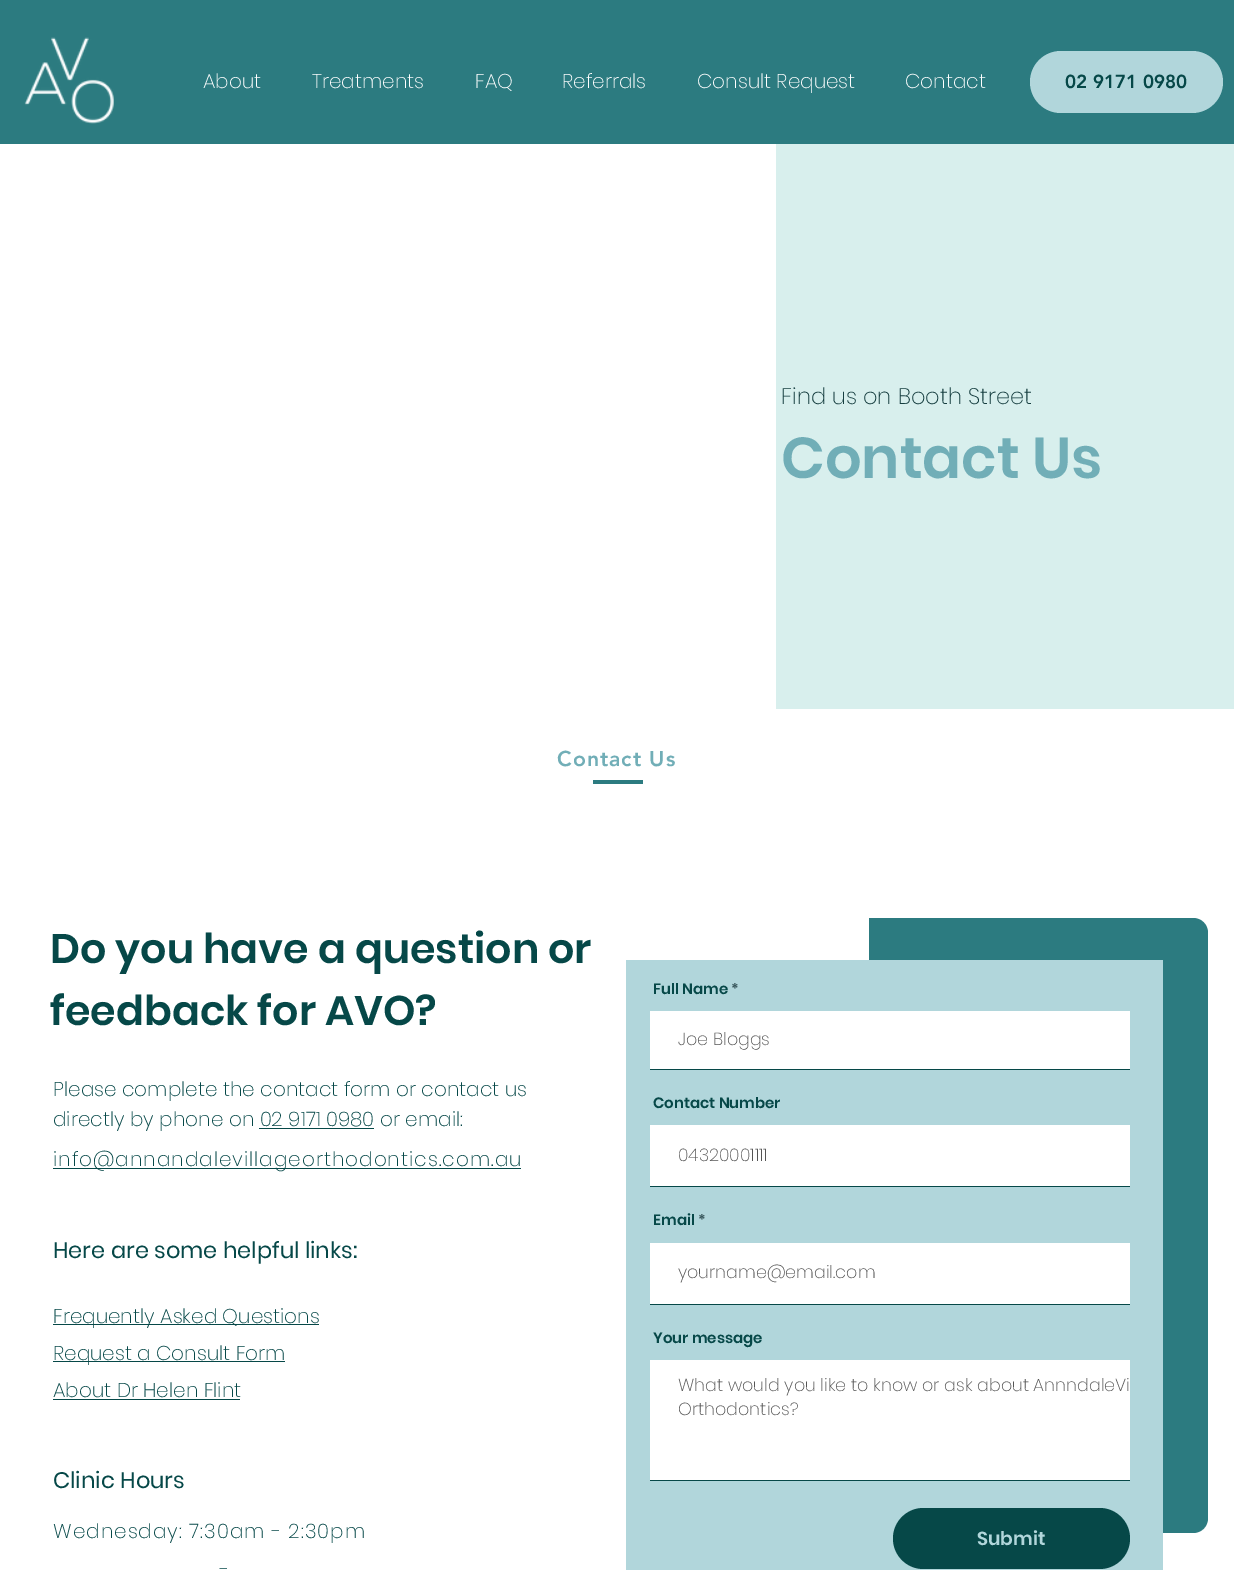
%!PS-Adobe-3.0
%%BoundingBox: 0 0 1234 1570
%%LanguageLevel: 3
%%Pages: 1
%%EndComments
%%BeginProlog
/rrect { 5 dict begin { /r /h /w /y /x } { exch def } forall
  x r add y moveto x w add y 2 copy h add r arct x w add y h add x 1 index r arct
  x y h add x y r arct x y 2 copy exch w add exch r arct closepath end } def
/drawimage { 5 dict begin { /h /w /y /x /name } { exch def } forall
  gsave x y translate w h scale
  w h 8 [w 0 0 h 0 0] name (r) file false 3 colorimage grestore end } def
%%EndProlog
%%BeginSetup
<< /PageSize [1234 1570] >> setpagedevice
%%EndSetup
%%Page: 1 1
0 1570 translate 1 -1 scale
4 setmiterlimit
1 setgray
0 0 1234 1570 rectfill
0.173 0.482 0.502 setrgbcolor
0 0 1234 144 rectfill
(images/1.raw) 24 37 90 87 drawimage
0.694 0.839 0.859 setrgbcolor
1030 51 193 62 31 rrect fill
0.847 0.937 0.929 setrgbcolor
776 144 458 565 rectfill
0.173 0.482 0.502 setrgbcolor
593 780 50 4 rectfill
0.024 0.282 0.282 setrgbcolor
259 1128 115 1 rectfill
53 1168 468 1 rectfill
53 1324 266 1 rectfill
53 1361 232 1 rectfill
53 1399 187 1 rectfill
0.173 0.482 0.502 setrgbcolor
newpath 869 918 moveto 1193 918 lineto 1201.5 918 1208 924.5 1208 933 curveto 1208 1518 lineto 1208 1526.5 1201.5 1533 1193 1533 curveto 869 1533 lineto closepath fill
0.694 0.839 0.859 setrgbcolor
626 960 537 610 rectfill
1 setgray
650 1011 480 58 rectfill
0.024 0.282 0.282 setrgbcolor
650 1069 480 1 rectfill
1 setgray
650 1125 480 61 rectfill
0.024 0.282 0.282 setrgbcolor
650 1186 480 1 rectfill
1 setgray
650 1243 480 61 rectfill
0.024 0.282 0.282 setrgbcolor
650 1304 480 1 rectfill
1 setgray
650 1360 480 120 rectfill
0.024 0.282 0.282 setrgbcolor
650 1480 480 1 rectfill
893 1508 237 61 30.5 rrect fill
/Poppins-ExtraLight [20 0 0 -20 0 0] selectfont
1 setgray
203 88 moveto (About) show
312 88 moveto (Treatments) show
475 88 moveto (FAQ) show
562 88 moveto (Referrals) show
697 88 moveto (Consult Request) show
905 88 moveto (Contact) show
/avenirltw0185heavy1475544-Black [18.75 0 0 -18.75 0 0] selectfont
0.024 0.282 0.282 setrgbcolor
1065 88 moveto (02 9171 0980) show
/Poppins-ExtraLight [22.5 0 0 -22.5 0 0] selectfont
0.086 0.243 0.251 setrgbcolor
781 404 moveto (Find us on Booth Street) show
/Poppins-SemiBold [57.5 0 0 -57.5 0 0] selectfont
0.443 0.682 0.718 setrgbcolor
781 478 moveto (Contact Us) show
/avenirltw0185heavy1475544-Black [21.25 0 0 -21.25 0 0] selectfont
557 766 moveto 1 0 (Contact Us) ashow
/Poppins-SemiBold [41.25 0 0 -41.25 0 0] selectfont
0.024 0.282 0.282 setrgbcolor
50 963 moveto (Do you have a question or) show
50 1025 moveto (feedback for AVO?) show
/Poppins-ExtraLight [20 0 0 -20 0 0] selectfont
53 1096 moveto (Please complete the contact form or contact us) show
53 1126 moveto (directly by phone on 02 9171 0980 or email:) show
53 1166 moveto 1 0 (info@annandalevillageorthodontics.com.au) ashow
/Poppins-Regular [22.5 0 0 -22.5 0 0] selectfont
53 1258 moveto (Here are some helpful links:) show
/Poppins-ExtraLight [20 0 0 -20 0 0] selectfont
53 1323 moveto (Frequently Asked Questions) show
53 1360 moveto (Request a Consult Form) show
53 1397 moveto (About Dr Helen Flint) show
/Poppins-Regular [22.5 0 0 -22.5 0 0] selectfont
53 1488 moveto (Clinic Hours) show
/Poppins-ExtraLight [20 0 0 -20 0 0] selectfont
53 1538 moveto 1 0 (Wednesday: 7:30am - 2:30pm) ashow
220 1576 moveto 1 0 (-) ashow
/Poppins-SemiBold [15 0 0 -15 0 0] selectfont
653 994 moveto (Full Name) show
0.224 0.341 0.361 setrgbcolor
731 994 moveto (*) show
/Poppins-ExtraLight [17.5 0 0 -17.5 0 0] selectfont
0.333 setgray
678 1045 moveto (Joe Bloggs) show
/Poppins-SemiBold [15 0 0 -15 0 0] selectfont
0.024 0.282 0.282 setrgbcolor
653 1108 moveto (Contact Number) show
/Poppins-ExtraLight [17.5 0 0 -17.5 0 0] selectfont
0.333 setgray
678 1161 moveto (04320001111) show
/Poppins-SemiBold [15 0 0 -15 0 0] selectfont
0.024 0.282 0.282 setrgbcolor
653 1225 moveto (Email) show
0.224 0.341 0.361 setrgbcolor
698 1225 moveto (*) show
/Poppins-ExtraLight [17.5 0 0 -17.5 0 0] selectfont
0.333 setgray
678 1278 moveto (yourname@email.com) show
/Poppins-SemiBold [15 0 0 -15 0 0] selectfont
0.024 0.282 0.282 setrgbcolor
653 1343 moveto (Your message) show
/Poppins-ExtraLight [17.5 0 0 -17.5 0 0] selectfont
0.333 setgray
678 1391 moveto (What would you like to know or ask about AnnndaleVi) show
678 1415 moveto (Orthodontics?) show
/Poppins-SemiBold [18.75 0 0 -18.75 0 0] selectfont
0.694 0.839 0.859 setrgbcolor
977 1545 moveto (Submit) show
showpage
%%EOF
